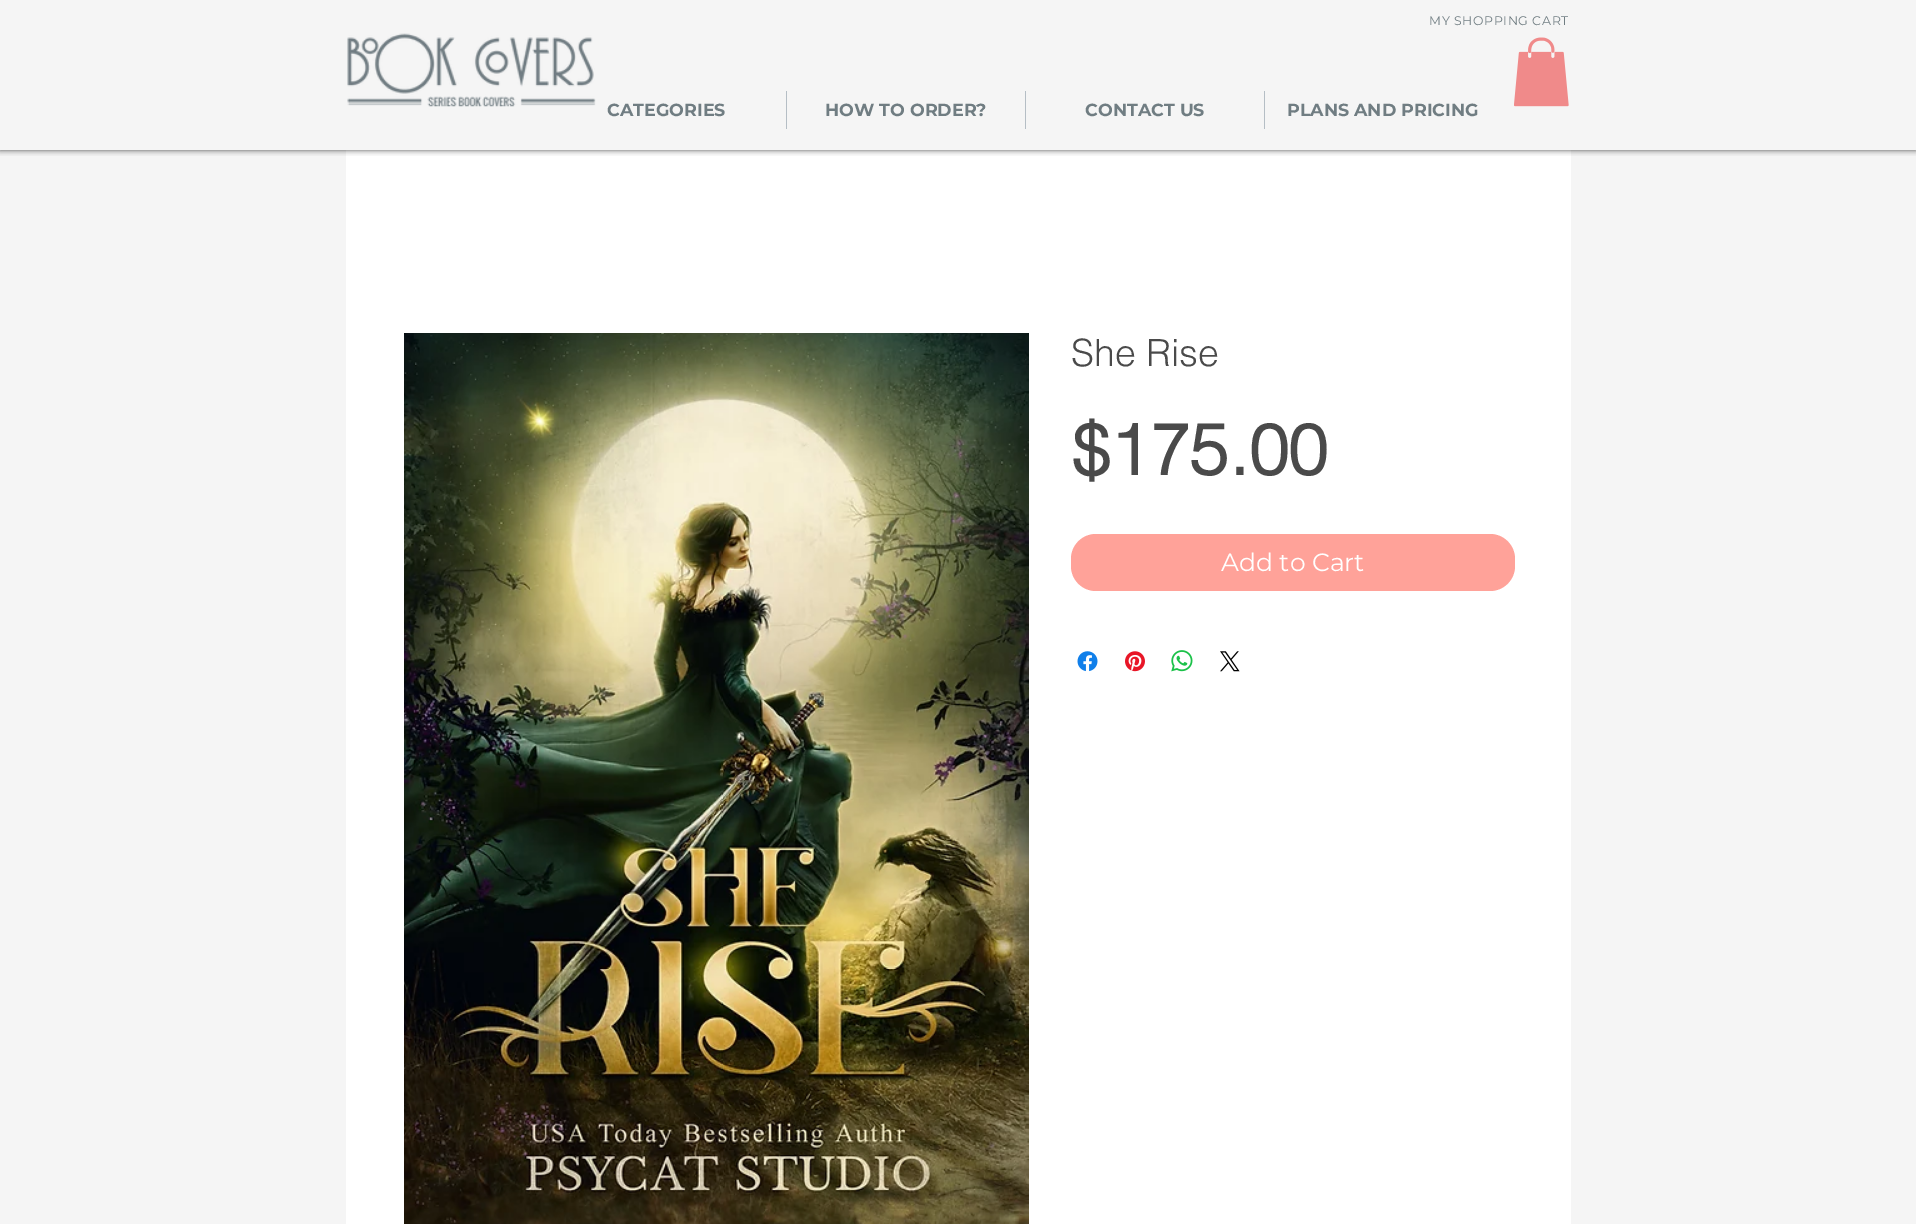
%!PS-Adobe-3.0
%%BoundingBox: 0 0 1916 1224
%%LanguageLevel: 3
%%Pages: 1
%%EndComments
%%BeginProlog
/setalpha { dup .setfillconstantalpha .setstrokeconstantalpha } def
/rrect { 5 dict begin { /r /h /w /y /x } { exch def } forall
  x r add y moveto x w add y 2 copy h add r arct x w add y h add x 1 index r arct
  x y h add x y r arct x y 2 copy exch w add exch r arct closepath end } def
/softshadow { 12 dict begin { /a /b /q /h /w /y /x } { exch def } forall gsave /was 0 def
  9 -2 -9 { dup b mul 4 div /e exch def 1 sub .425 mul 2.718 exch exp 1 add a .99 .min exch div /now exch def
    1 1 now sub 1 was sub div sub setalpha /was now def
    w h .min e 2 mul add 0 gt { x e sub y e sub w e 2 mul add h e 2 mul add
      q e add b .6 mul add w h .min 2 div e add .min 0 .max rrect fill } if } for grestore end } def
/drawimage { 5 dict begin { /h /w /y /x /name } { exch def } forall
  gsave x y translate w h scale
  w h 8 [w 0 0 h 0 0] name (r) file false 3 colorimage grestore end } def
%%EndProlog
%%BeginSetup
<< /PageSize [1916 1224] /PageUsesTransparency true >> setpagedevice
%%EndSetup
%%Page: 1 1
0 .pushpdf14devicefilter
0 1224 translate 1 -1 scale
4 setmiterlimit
0.961 setgray
0 0 1916 1224 rectfill
1 setgray
346 150 1225 1074 rectfill
gsave
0 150 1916 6 rectclip
0 setgray
0 0 1916 150 0 3 0.7 softshadow
grestore
(images/1.raw) 347 33 249 74 drawimage
(images/2.raw) 1514 37 55 70 drawimage
0.71 0.745 0.773 setrgbcolor
786 91 1 38 rectfill
1025 91 1 38 rectfill
1264 91 1 38 rectfill
(images/3.raw) 404 333 625 891 drawimage
1 0.635 0.6 setrgbcolor
1071 534 444 57 25 rrect fill
(images/4.raw) 1077 651 21 21 drawimage
(images/5.raw) 1125 651 20 21 drawimage
(images/6.raw) 1171 650 22 22 drawimage
(images/7.raw) 1220 651 20 21 drawimage
/Montserrat-Regular [12.5 0 0 -12.5 0 0] selectfont
0.439 0.49 0.51 setrgbcolor
1429 25 moveto 0.6 0 (MY SHOPPING CART) ashow
/Montserrat-Bold [17.5 0 0 -17.5 0 0] selectfont
607 116 moveto (CATEGORIES) show
825 116 moveto (HOW TO ORDER?) show
1085 116 moveto (CONTACT US) show
1287 116 moveto (PLANS AND PRICING) show
/helvetica-Light [37.5 0 0 -37.5 0 0] selectfont
0.29 setgray
1071 366 moveto (She Rise) show
/helvetica-Bold [71 0 0 -71 0 0] selectfont
1071 475 moveto ($175.00) show
/Montserrat-Regular [25 0 0 -25 0 0] selectfont
1 setgray
1221 571 moveto (Add to Cart) show
.poppdf14devicefilter showpage
%%EOF
